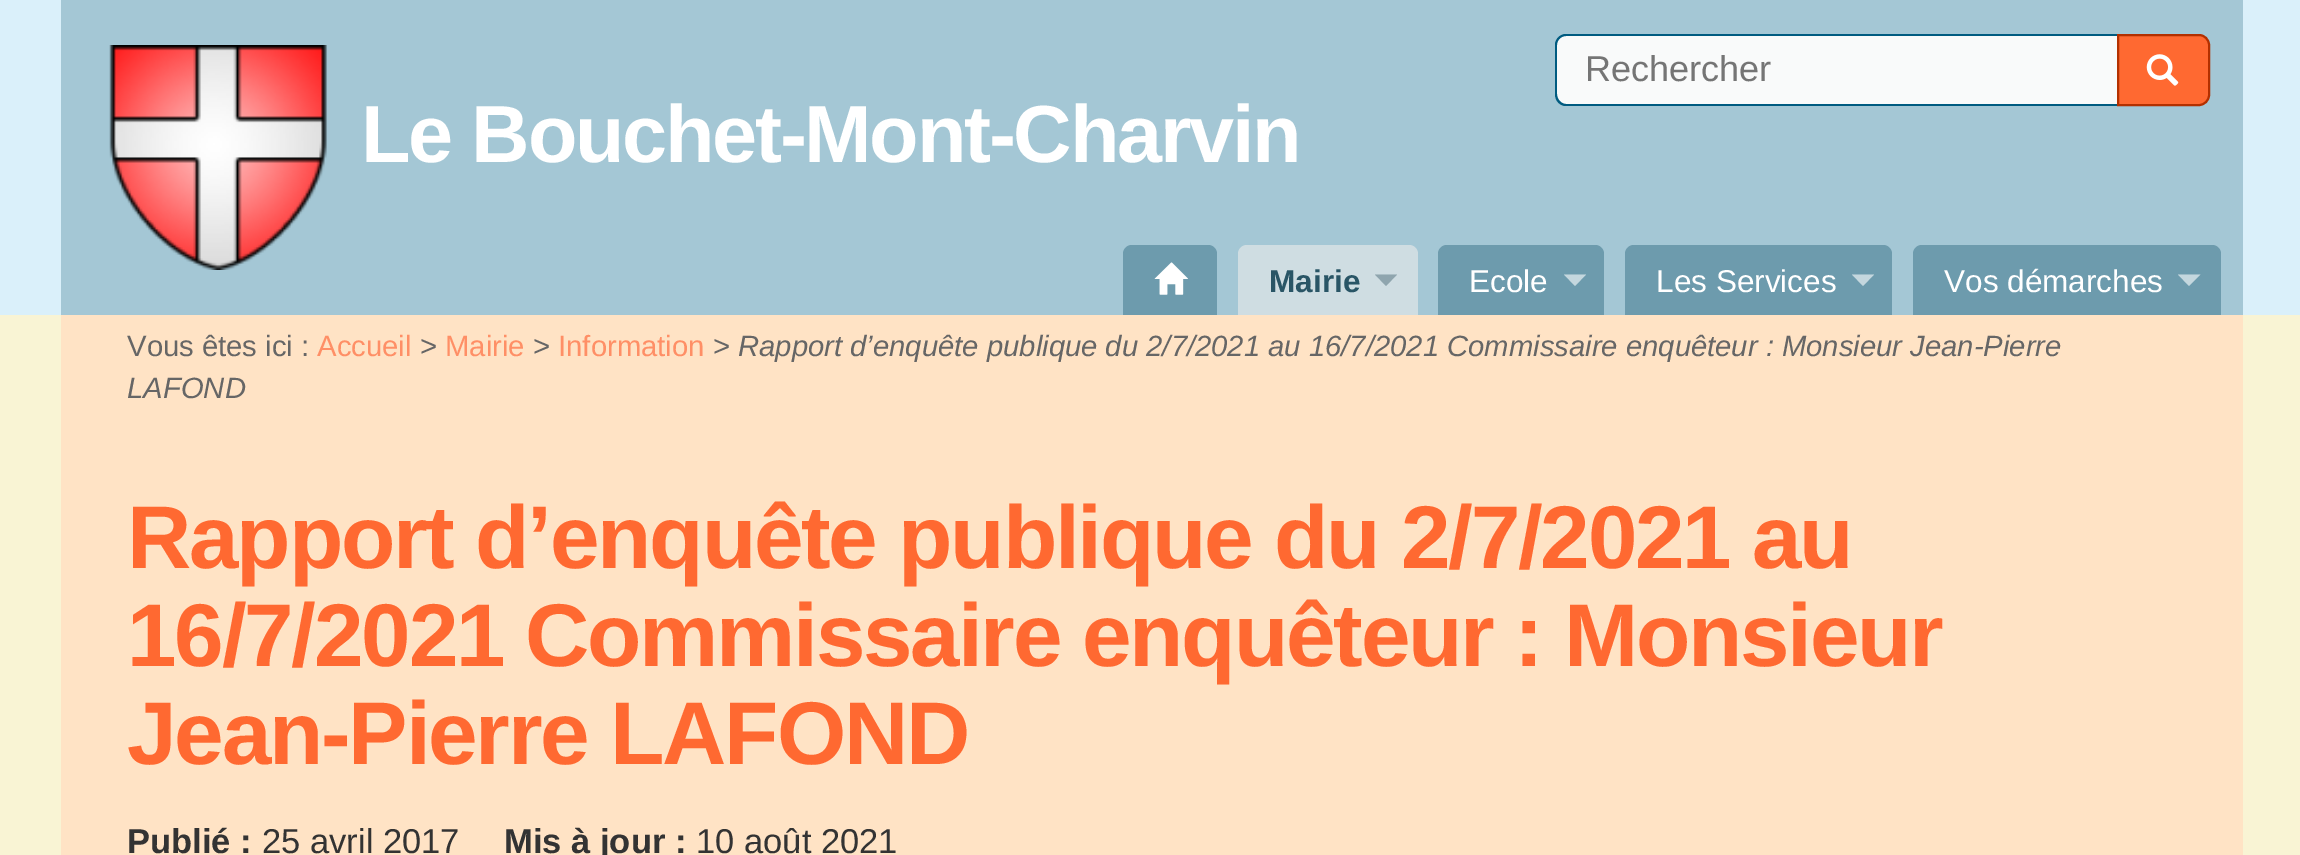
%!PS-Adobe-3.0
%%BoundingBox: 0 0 2300 855
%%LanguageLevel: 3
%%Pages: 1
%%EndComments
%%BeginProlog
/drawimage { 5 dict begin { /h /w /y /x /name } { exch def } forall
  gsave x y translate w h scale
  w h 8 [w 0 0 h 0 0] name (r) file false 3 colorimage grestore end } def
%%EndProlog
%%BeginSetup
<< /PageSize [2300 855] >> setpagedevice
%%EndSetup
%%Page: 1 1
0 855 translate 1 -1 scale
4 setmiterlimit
0.855 0.941 0.98 setrgbcolor
0 0 2300 855 rectfill
0.643 0.78 0.835 setrgbcolor
61 0 2182 315 rectfill
0.976 0.98 0.98 setrgbcolor
newpath 1566 36 moveto 2117 36 lineto 2117 104 lineto 1566 104 lineto 1561 104 1557 100 1557 95 curveto 1557 45 lineto 1557 40 1561 36 1566 36 curveto closepath fill
0 0.357 0.502 setrgbcolor
newpath 1566 34 moveto 2117 34 lineto 2117 106 lineto 1566 106 lineto 1560 106 1555 101 1555 94 curveto 1555 45 lineto 1555 39 1560 34 1566 34 curveto closepath 1566 36 moveto 2117 36 lineto 2117 104 lineto 1566 104 lineto 1561 104 1557 99 1557 94 curveto 1557 45 lineto 1557 40 1561 36 1566 36 curveto closepath eofill
1 0.412 0.192 setrgbcolor
newpath 2118 35 moveto 2199 35 lineto 2204.5 35 2209 39.5 2209 45 curveto 2209 95 lineto 2209 100.5 2204.5 105 2199 105 curveto 2118 105 lineto closepath gsave fill grestore
0.702 0.188 0 setrgbcolor
2 setlinewidth
stroke
(images/1.raw) 2146 54 33 32 drawimage
(images/2.raw) 109 45 218 225 drawimage
0.427 0.608 0.678 setrgbcolor
newpath 1132 245 moveto 1208 245 lineto 1213 245 1217 249 1217 254 curveto 1217 315 lineto 1123 315 lineto 1123 254 lineto 1123 249 1127 245 1132 245 curveto closepath fill
(images/3.raw) 1154 262 34 33 drawimage
0.812 0.867 0.886 setrgbcolor
newpath 1247 245 moveto 1409 245 lineto 1414 245 1418 249 1418 254 curveto 1418 315 lineto 1238 315 lineto 1238 254 lineto 1238 249 1242 245 1247 245 curveto closepath fill
0.561 0.647 0.682 setrgbcolor
newpath 1375 274.5 moveto 1397 274.5 lineto 1386 286 lineto closepath fill
0.427 0.608 0.678 setrgbcolor
newpath 1447 245 moveto 1595 245 lineto 1600 245 1604 249 1604 254 curveto 1604 315 lineto 1438 315 lineto 1438 254 lineto 1438 249 1442 245 1447 245 curveto closepath fill
0.769 0.843 0.871 setrgbcolor
newpath 1564 274.5 moveto 1586 274.5 lineto 1575 286 lineto closepath fill
0.427 0.608 0.678 setrgbcolor
newpath 1634 245 moveto 1883 245 lineto 1888 245 1892 249 1892 254 curveto 1892 315 lineto 1625 315 lineto 1625 254 lineto 1625 249 1629 245 1634 245 curveto closepath fill
0.769 0.843 0.871 setrgbcolor
newpath 1852 274.5 moveto 1874 274.5 lineto 1863 286 lineto closepath fill
0.427 0.608 0.678 setrgbcolor
newpath 1922 245 moveto 2212 245 lineto 2217 245 2221 249 2221 254 curveto 2221 315 lineto 1913 315 lineto 1913 254 lineto 1913 249 1917 245 1922 245 curveto closepath fill
0.769 0.843 0.871 setrgbcolor
newpath 2178 274.5 moveto 2200.5 274.5 lineto 2189 286 lineto closepath fill
0.976 0.957 0.831 setrgbcolor
0 315 2300 540 rectfill
1 0.89 0.773 setrgbcolor
61 315 2182 540 rectfill
/LiberationSans-Regular [36 0 0 -36 0 0] selectfont
0.459 setgray
1585 81 moveto (Rechercher) show
/LiberationSans-Bold [81 0 0 -81 0 0] selectfont
1 setgray
361 162 moveto -2.25 0 (Le Bouchet-Mont-Charvin) ashow
/LiberationSans-Bold [31.5 0 0 -31.5 0 0] selectfont
0.161 0.333 0.4 setrgbcolor
1269 292 moveto (Mairie) show
/LiberationSans-Regular [31.5 0 0 -31.5 0 0] selectfont
1 setgray
1469 292 moveto (Ecole) show
1656 292 moveto (Les Services) show
1944 292 moveto (Vos démarches) show
/LiberationSans-Regular [29.25 0 0 -29.25 0 0] selectfont
0.4 setgray
127 356 moveto (Vous êtes ici :) show
1 0.561 0.4 setrgbcolor
317 356 moveto (Accueil) show
0.4 setgray
420 356 moveto (>) show
1 0.561 0.4 setrgbcolor
445 356 moveto (Mairie) show
0.4 setgray
533 356 moveto (>) show
1 0.561 0.4 setrgbcolor
558 356 moveto (Information) show
0.4 setgray
713 356 moveto (>) show
/LiberationSans-Italic [29.25 0 0 -29.25 0 0] selectfont
738 356 moveto (Rapport d’enquête publique du 2/7/2021 au 16/7/2021 Commissaire enquêteur : Monsieur Jean-Pierre) show
127 398 moveto (LAFOND) show
/LiberationSans-Bold [89.1 0 0 -89.1 0 0] selectfont
1 0.412 0.192 setrgbcolor
127 568 moveto -2.25 0 (Rapport d’enquête publique du 2/7/2021 au) ashow
127 666 moveto -0.5 0 32 -2.25 0 (16/7/2021 Commissaire enquêteur : Monsieur) awidthshow
127 764 moveto -2.25 0 (Jean-Pierre LAFOND) ashow
/LiberationSans-Bold [34.5 0 0 -34.5 0 0] selectfont
0.2 setgray
127 853 moveto (Publié :) show
/LiberationSans-Regular [34.5 0 0 -34.5 0 0] selectfont
262 853 moveto (25 avril 2017) show
/LiberationSans-Bold [34.5 0 0 -34.5 0 0] selectfont
504 853 moveto (Mis à jour :) show
/LiberationSans-Regular [34.5 0 0 -34.5 0 0] selectfont
696 853 moveto (10 août 2021) show
showpage
%%EOF
